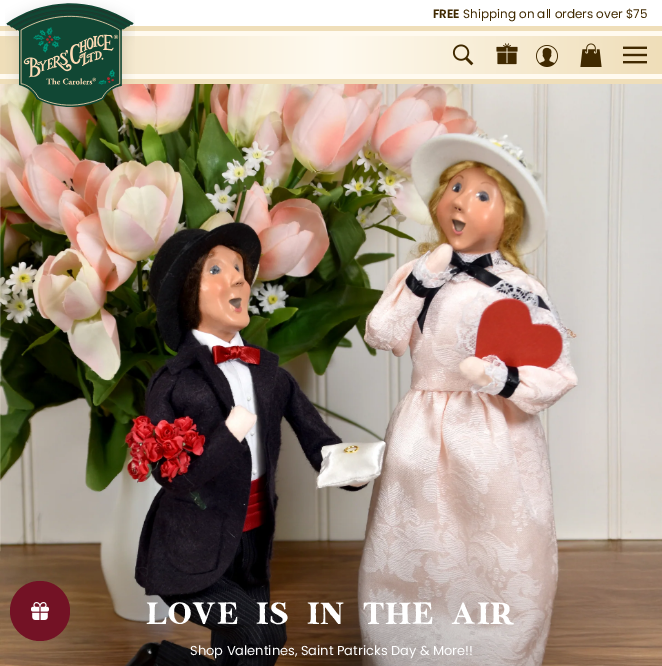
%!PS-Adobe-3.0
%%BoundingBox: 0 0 662 666
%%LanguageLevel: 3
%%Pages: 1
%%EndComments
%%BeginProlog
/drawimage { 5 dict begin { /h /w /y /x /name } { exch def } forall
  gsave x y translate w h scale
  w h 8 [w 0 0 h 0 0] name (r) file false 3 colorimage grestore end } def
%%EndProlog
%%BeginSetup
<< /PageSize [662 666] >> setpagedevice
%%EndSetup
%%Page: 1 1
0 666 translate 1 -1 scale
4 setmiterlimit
1 setgray
0 0 662 666 rectfill
(images/8.raw) 0 84 662 582 drawimage
0.451 0.071 0.145 setrgbcolor
newpath 40 611 30 0 360 arc closepath fill
(images/1.raw) 31 602 18 18 drawimage
gsave newpath 0 36 moveto 662 36 lineto 662 74 lineto 0 74 lineto closepath clip newpath
<< /ShadingType 2 /ColorSpace /DeviceRGB /Coords [0 79 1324 79] /Extend [true true] /Function << /FunctionType 3 /Domain [0 1] /Functions [<< /FunctionType 2 /Domain [0 1] /C0 [0.937 0.871 0.725] /C1 [1 0.98 0.937] /N 1 >> << /FunctionType 2 /Domain [0 1] /C0 [1 0.98 0.937] /C1 [0.937 0.871 0.725] /N 1 >> << /FunctionType 2 /Domain [0 1] /C0 [0.937 0.871 0.725] /C1 [1 0.98 0.937] /N 1 >> << /FunctionType 2 /Domain [0 1] /C0 [1 0.98 0.937] /C1 [0.937 0.871 0.725] /N 1 >>] /Bounds [0.25 0.5 0.75] /Encode [0 1 0 1 0 1 0 1] >> >> shfill grestore
0.937 0.871 0.725 setrgbcolor
0 26 662 5 rectfill
0 79 662 5 rectfill
1 0.98 0.937 setrgbcolor
0 31 662 5 rectfill
0 74 662 5 rectfill
(images/2.raw) 5 0 130 119 drawimage
(images/3.raw) 452 44 22 22 drawimage
(images/4.raw) 496 43 22 22 drawimage
(images/5.raw) 536 45 22 22 drawimage
(images/6.raw) 580 43 22 24 drawimage
(images/7.raw) 623 46 24 18 drawimage
/Poppins-SemiBold [12 0 0 -12 0 0] selectfont
0.251 0.161 0 setrgbcolor
433 18 moveto (FREE) show
/Poppins-Regular [12 0 0 -12 0 0] selectfont
463 18 moveto (Shipping on all orders over $75) show
/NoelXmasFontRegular-Regular [33.75 0 0 -33.75 0 0] selectfont
1 setgray
146 624 moveto 0.8 0 (Love is in The Air) ashow
/Poppins-Regular [13 0 0 -13 0 0] selectfont
190 655 moveto (Shop Valentines, Saint Patricks Day & More!!) show
showpage
%%EOF
